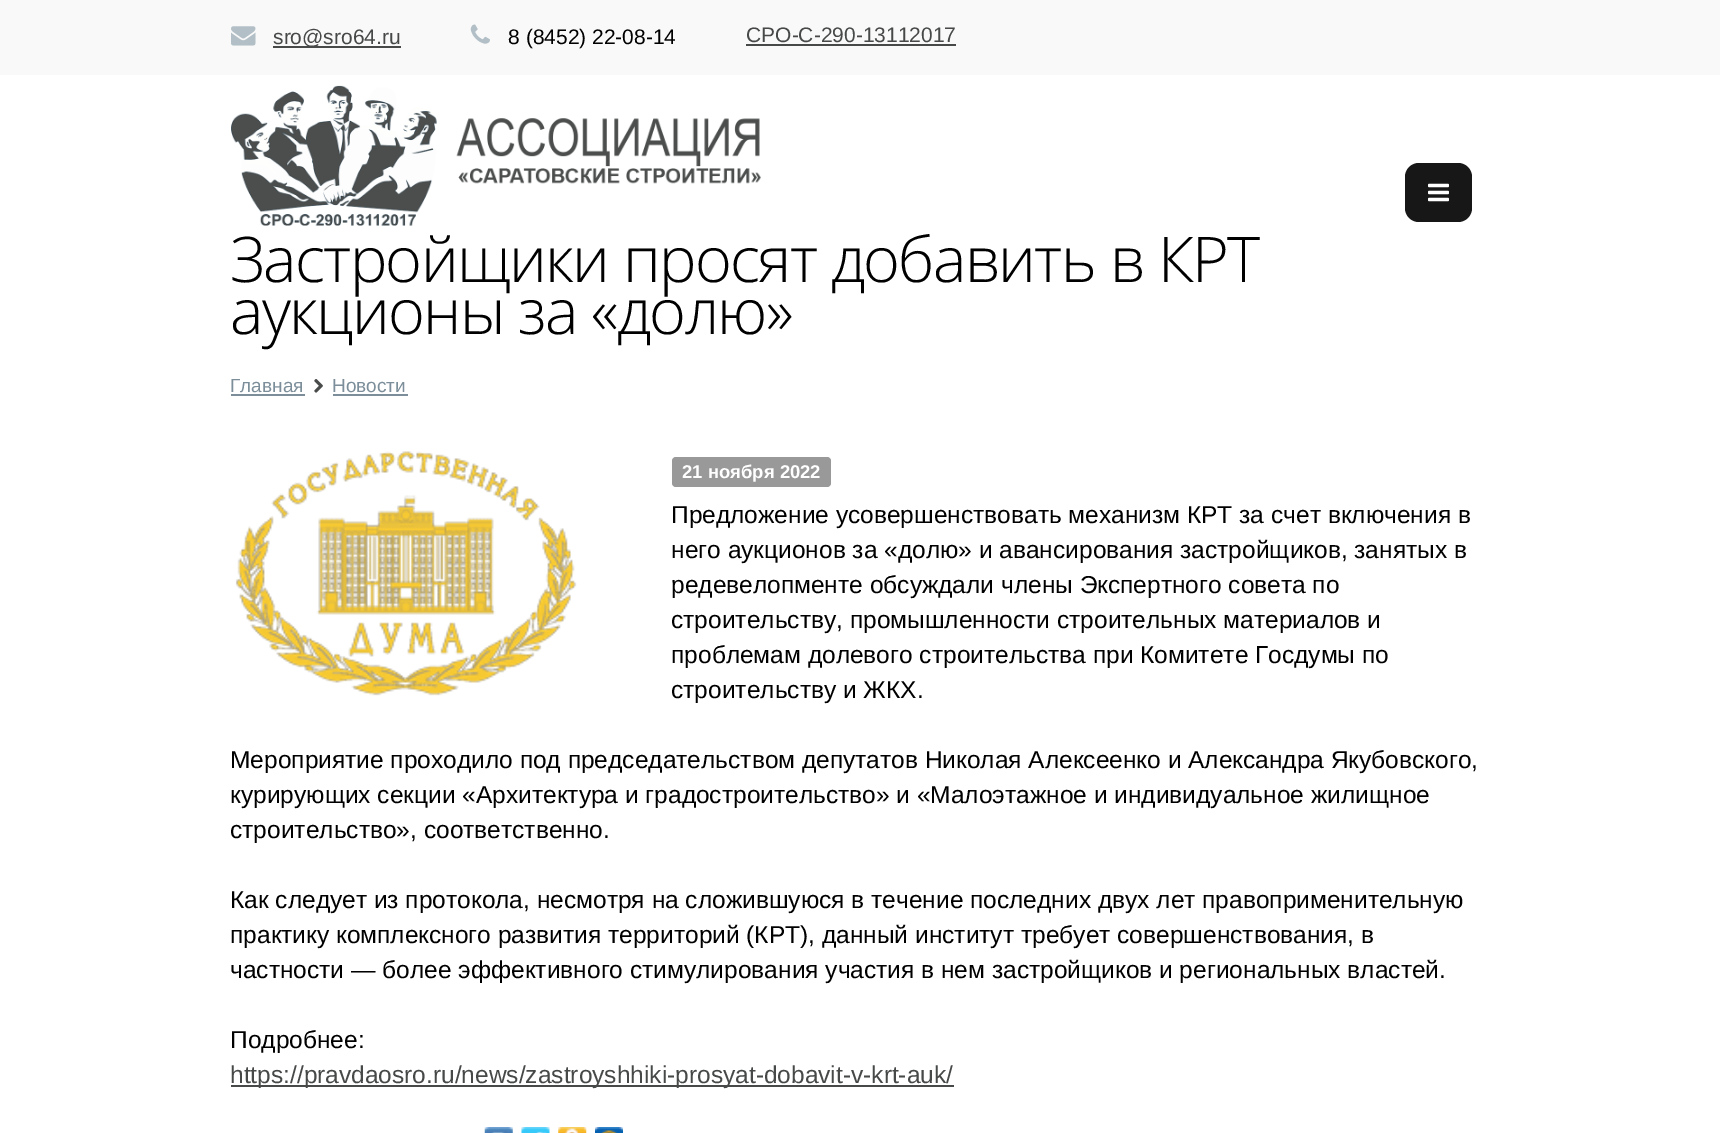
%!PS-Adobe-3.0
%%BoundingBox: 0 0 1720 1133
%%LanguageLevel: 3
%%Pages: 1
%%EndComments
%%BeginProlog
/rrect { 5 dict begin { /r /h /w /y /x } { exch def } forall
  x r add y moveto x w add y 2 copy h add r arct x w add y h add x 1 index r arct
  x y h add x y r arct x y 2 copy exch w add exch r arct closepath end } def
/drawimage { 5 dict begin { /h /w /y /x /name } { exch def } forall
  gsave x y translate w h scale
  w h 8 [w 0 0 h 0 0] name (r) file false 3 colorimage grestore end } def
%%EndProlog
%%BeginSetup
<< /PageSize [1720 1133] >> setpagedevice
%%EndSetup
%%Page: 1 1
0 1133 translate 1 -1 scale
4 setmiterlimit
1 setgray
0 0 1720 1133 rectfill
0.976 setgray
0 0 1720 75 rectfill
(images/1.raw) 231 26 25 20 drawimage
0.275 0.286 0.278 setrgbcolor
273 46 128 2 rectfill
(images/2.raw) 470 24 20 20 drawimage
746 44 210 2 rectfill
(images/3.raw) 231 85 530 141 drawimage
0.09 setgray
1405 163 67 59 14 rrect fill
(images/4.raw) 1428 183 21 19 drawimage
0.486 0.557 0.604 setrgbcolor
231 394 74 2 rectfill
(images/5.raw) 314 379 9 14 drawimage
333 394 75 2 rectfill
(images/6.raw) 235 451 342 245 drawimage
0.6 setgray
672 457 159 30 4 rrect fill
0.275 0.286 0.278 setrgbcolor
231 1085 723 2 rectfill
(images/7.raw) 484 1127 29 6 drawimage
(images/8.raw) 521 1127 29 6 drawimage
(images/9.raw) 558 1127 29 6 drawimage
(images/10.raw) 595 1127 28 6 drawimage
/LiberationSans-Regular [21 0 0 -21 0 0] selectfont
273 44 moveto (sro@sro64.ru) show
0 setgray
508 44 moveto (8 \(8452\) 22-08-14) show
0.275 0.286 0.278 setrgbcolor
746 42 moveto (СРО-С-290-13112017) show
/OpenSans-Light [63 0 0 -63 0 0] selectfont
0 setgray
230 282 moveto -1.75 0 (Застройщики просят добавить в КРТ) ashow
230 334 moveto -1.75 0 (аукционы за «долю») ashow
/LiberationSans-Regular [19 0 0 -19 0 0] selectfont
0.486 0.557 0.604 setrgbcolor
230 392 moveto (Главная) show
332 392 moveto (Новости) show
/LiberationSans-Bold [18.5 0 0 -18.5 0 0] selectfont
1 setgray
682 478 moveto (21 ноября 2022) show
/LiberationSans-Regular [24.5 0 0 -24.5 0 0] selectfont
0 setgray
671 523 moveto (Предложение усовершенствовать механизм КРТ за счет включения в) show
671 558 moveto (него аукционов за «долю» и авансирования застройщиков, занятых в) show
671 593 moveto (редевелопменте обсуждали члены Экспертного совета по) show
671 628 moveto (строительству, промышленности строительных материалов и) show
671 663 moveto (проблемам долевого строительства при Комитете Госдумы по) show
671 698 moveto (строительству и ЖКХ.) show
230 768 moveto (Мероприятие проходило под председательством депутатов Николая Алексеенко и Александра Якубовского,) show
230 803 moveto (курирующих секции «Архитектура и градостроительство» и «Малоэтажное и индивидуальное жилищное) show
230 838 moveto (строительство», соответственно.) show
230 908 moveto (Как следует из протокола, несмотря на сложившуюся в течение последних двух лет правоприменительную) show
230 943 moveto (практику комплексного развития территорий \(КРТ\), данный институт требует совершенствования, в) show
230 978 moveto (частности — более эффективного стимулирования участия в нем застройщиков и региональных властей.) show
230 1048 moveto (Подробнее:) show
0.275 0.286 0.278 setrgbcolor
230 1083 moveto (https://pravdaosro.ru/news/zastroyshhiki-prosyat-dobavit-v-krt-auk/) show
showpage
%%EOF
